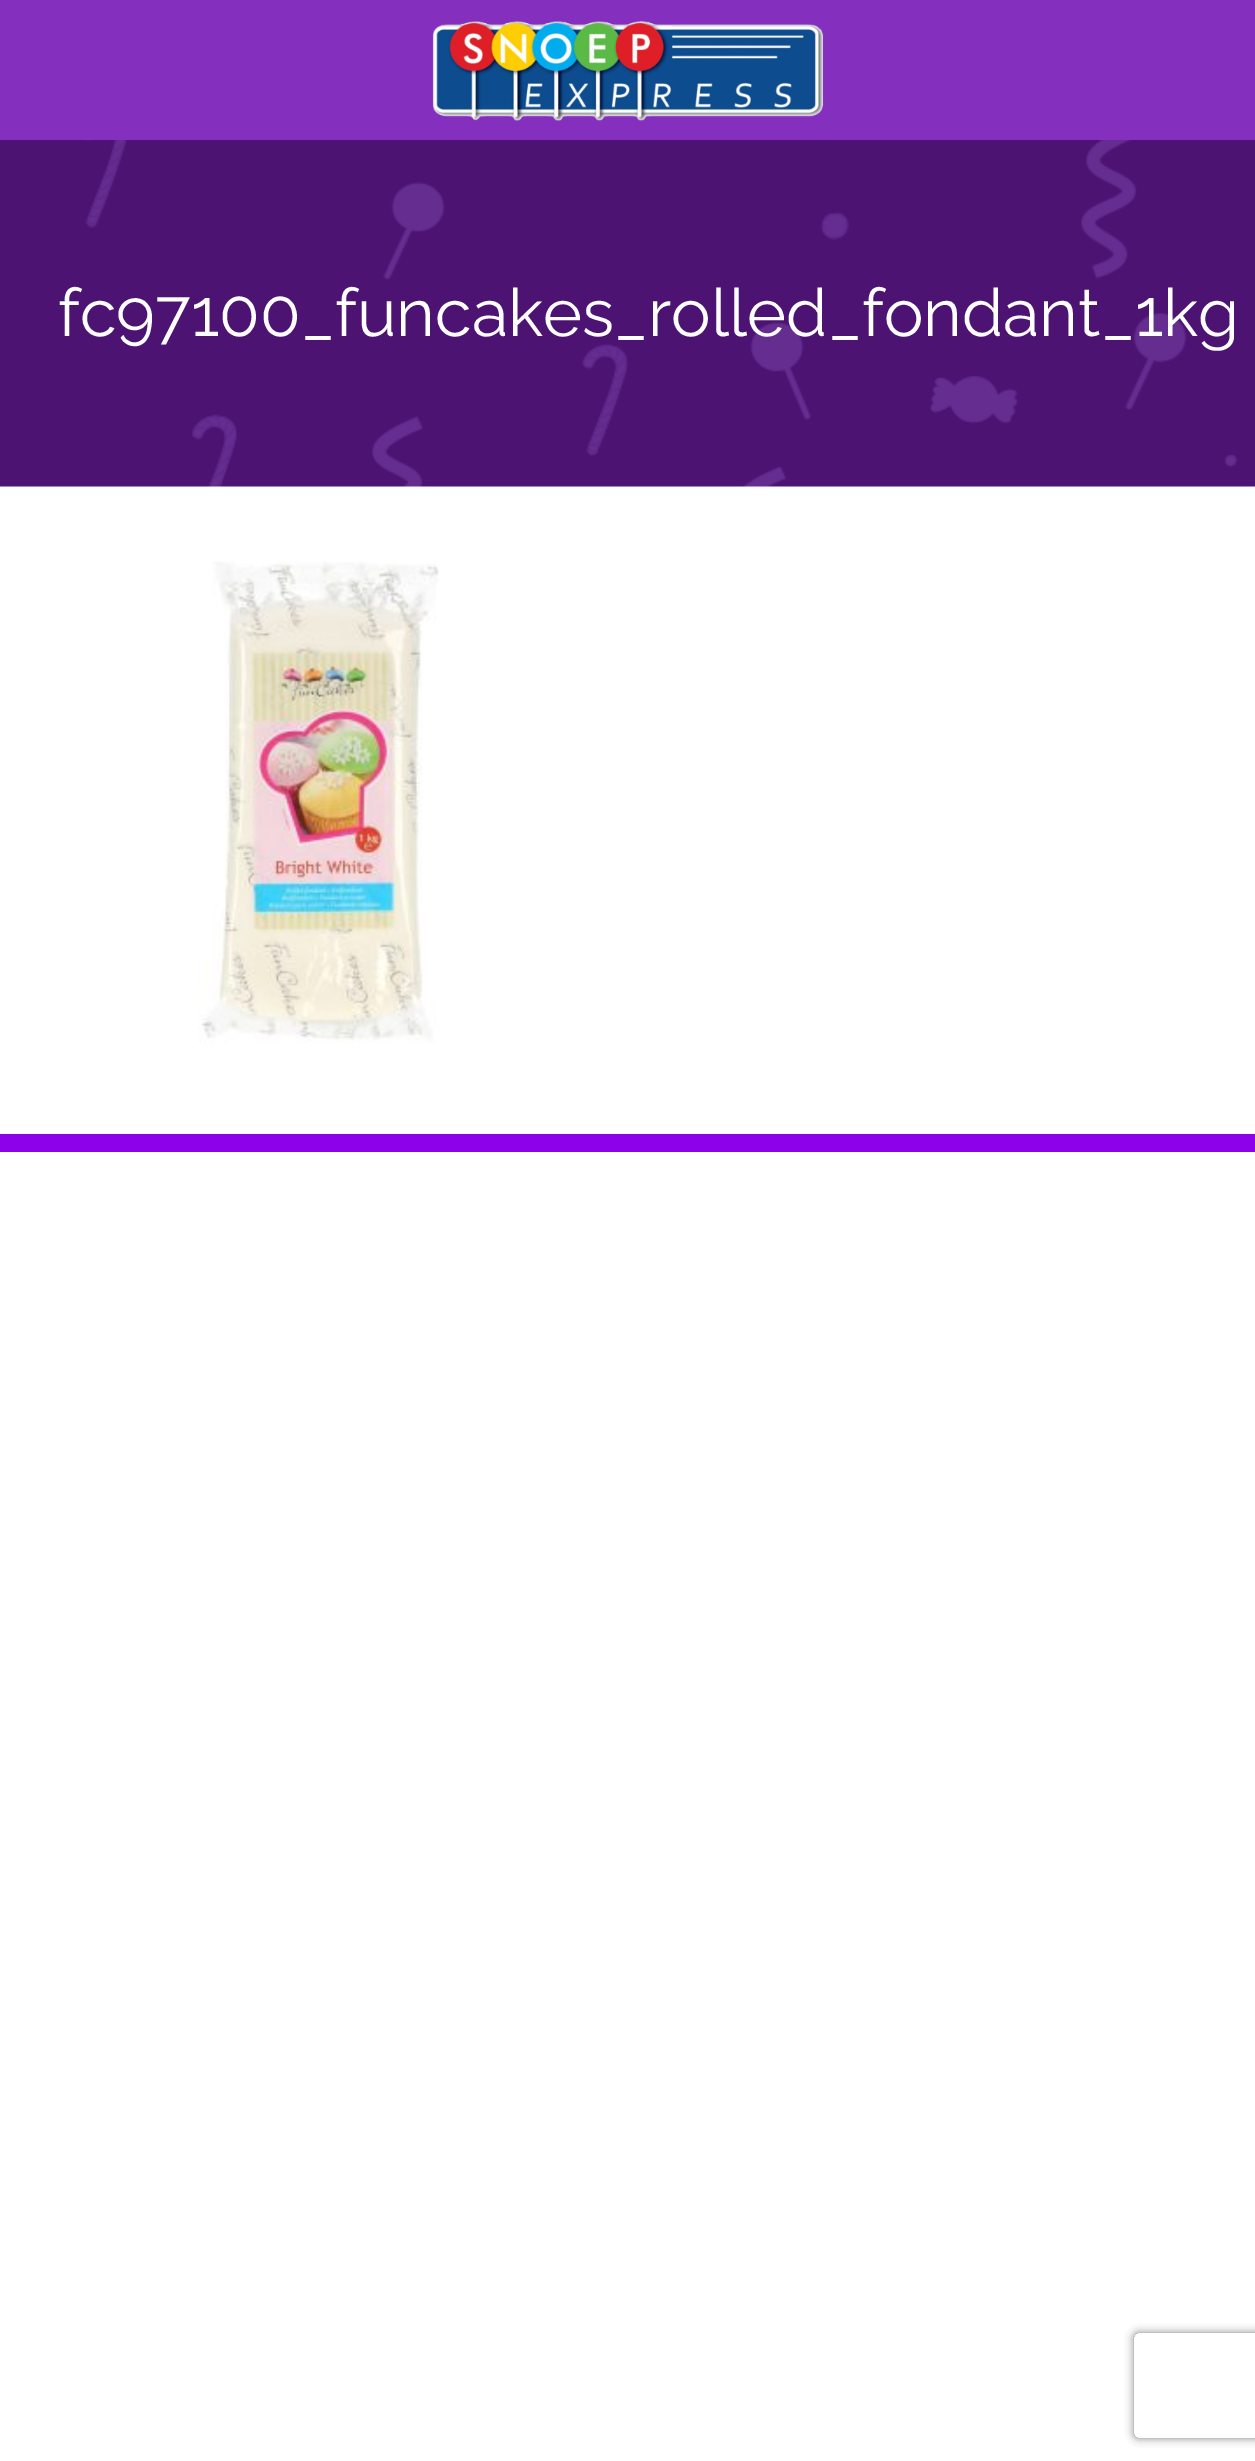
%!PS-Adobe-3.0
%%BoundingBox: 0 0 1255 2461
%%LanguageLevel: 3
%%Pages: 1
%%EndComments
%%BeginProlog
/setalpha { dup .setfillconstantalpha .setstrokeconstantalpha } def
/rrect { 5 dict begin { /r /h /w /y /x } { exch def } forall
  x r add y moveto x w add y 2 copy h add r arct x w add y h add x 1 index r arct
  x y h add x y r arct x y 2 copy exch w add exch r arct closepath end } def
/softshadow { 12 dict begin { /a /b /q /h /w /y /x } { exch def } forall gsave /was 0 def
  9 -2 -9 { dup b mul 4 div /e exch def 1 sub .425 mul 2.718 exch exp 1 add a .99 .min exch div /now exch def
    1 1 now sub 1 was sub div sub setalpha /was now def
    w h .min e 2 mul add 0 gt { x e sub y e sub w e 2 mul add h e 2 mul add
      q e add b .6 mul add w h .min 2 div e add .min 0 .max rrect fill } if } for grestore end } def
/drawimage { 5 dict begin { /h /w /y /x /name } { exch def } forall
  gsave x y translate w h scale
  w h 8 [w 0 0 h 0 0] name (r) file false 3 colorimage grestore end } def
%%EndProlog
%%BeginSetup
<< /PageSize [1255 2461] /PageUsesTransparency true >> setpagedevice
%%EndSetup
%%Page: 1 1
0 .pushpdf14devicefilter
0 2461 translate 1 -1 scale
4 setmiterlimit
1 setgray
0 0 1255 2461 rectfill
(images/1.raw) 0 140 1255 347 drawimage
0.522 0.184 0.745 setrgbcolor
0 0 1255 140 rectfill
(images/2.raw) 432 20 392 101 drawimage
(images/3.raw) 198 561 241 482 drawimage
0.553 0 0.918 setrgbcolor
0 1134 1255 18 rectfill
gsave
newpath 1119 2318 moveto 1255 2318 lineto 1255 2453 lineto 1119 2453 lineto closepath 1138 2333 moveto 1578 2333 lineto 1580 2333 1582 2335 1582 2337 curveto 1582 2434 lineto 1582 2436 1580 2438 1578 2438 curveto 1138 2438 lineto 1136 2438 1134 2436 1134 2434 curveto 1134 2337 lineto 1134 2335 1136 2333 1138 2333 curveto closepath eoclip newpath
0.502 setgray
1134 2333 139 105 4 4.5 1 softshadow
grestore
/Raleway-Regular [66.5 0 0 -66.5 0 0] selectfont
1 setgray
58 336 moveto (fc97100_funcakes_rolled_fondant_1kg) show
.poppdf14devicefilter showpage
%%EOF
